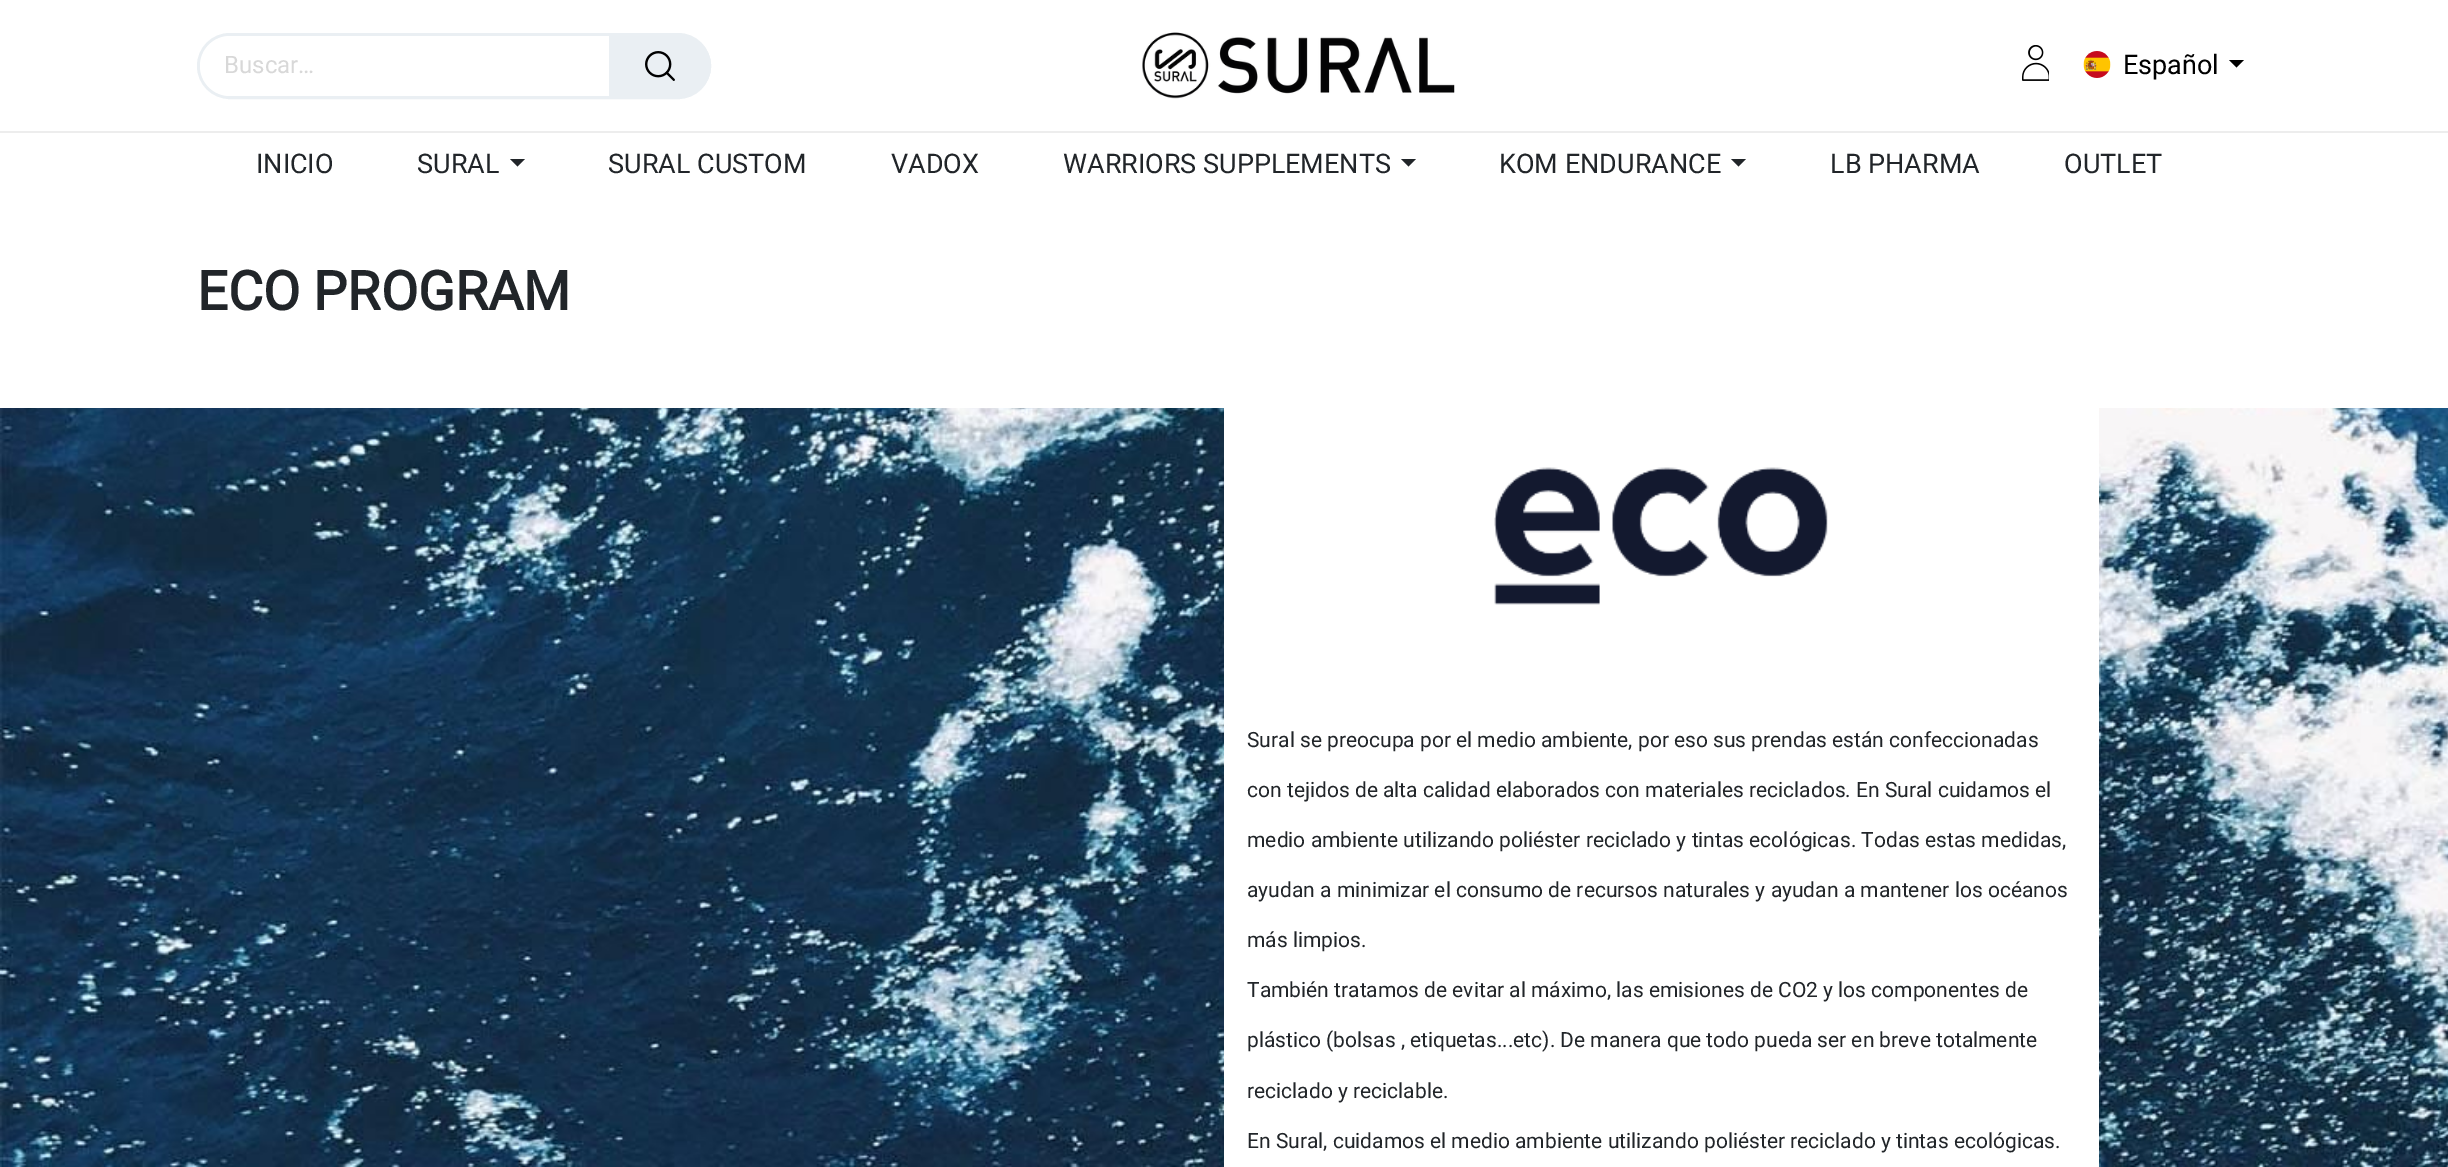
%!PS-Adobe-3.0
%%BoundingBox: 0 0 2448 1167
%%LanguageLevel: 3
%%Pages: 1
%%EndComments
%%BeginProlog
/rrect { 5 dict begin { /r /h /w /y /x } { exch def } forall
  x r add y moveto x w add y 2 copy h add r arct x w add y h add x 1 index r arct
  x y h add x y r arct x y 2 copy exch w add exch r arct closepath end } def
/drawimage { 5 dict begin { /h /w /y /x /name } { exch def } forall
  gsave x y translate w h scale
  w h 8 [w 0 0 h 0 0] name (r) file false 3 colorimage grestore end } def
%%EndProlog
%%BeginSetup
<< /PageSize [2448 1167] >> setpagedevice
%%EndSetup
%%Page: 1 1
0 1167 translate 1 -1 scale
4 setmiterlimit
1 setgray
0 0 2448 1167 rectfill
0.918 0.937 0.953 setrgbcolor
3 setlinewidth
198.5 34.5 511 63 31.5 rrect stroke
1 setgray
200 36 508 60 30 rrect fill
0.918 0.937 0.953 setrgbcolor
newpath 609 36 moveto 681 36 lineto 697.5 36 711 49.5 711 66 curveto 711 82.5 697.5 96 681 96 curveto 609 96 lineto closepath fill
(images/1.raw) 645 51 30 30 drawimage
(images/2.raw) 1142 32 313 67 drawimage
(images/3.raw) 2022 45 27 36 drawimage
(images/4.raw) 2083 51 28 27 drawimage
0 setgray
newpath 2229 60 moveto 2244 60 lineto 2236.5 67.5 lineto closepath fill
0.929 setgray
0 131 2448 2 rectfill
0.129 0.145 0.161 setrgbcolor
newpath 510 159 moveto 525 159 lineto 517.5 166.5 lineto closepath fill
newpath 1401 159 moveto 1416 159 lineto 1408.5 166.5 lineto closepath fill
newpath 1731 159 moveto 1746 159 lineto 1738.5 166.5 lineto closepath fill
(images/5.raw) 0 408 2448 759 drawimage
1 setgray
1224 408 875 759 rectfill
(images/6.raw) 1494 467 334 138 drawimage
/Roboto-Regular [24 0 0 -24 0 0] selectfont
0.847 setgray
224 73 moveto (Buscar…) show
/Roboto-Regular [27 0 0 -27 0 0] selectfont
0 setgray
2123 74 moveto (Español) show
0.129 0.145 0.161 setrgbcolor
256 173 moveto (INICIO) show
417 173 moveto (SURAL) show
608 173 moveto (SURAL CUSTOM) show
891 173 moveto (VADOX) show
1063 173 moveto (WARRIORS SUPPLEMENTS) show
1499 173 moveto (KOM ENDURANCE) show
1830 173 moveto (LB PHARMA) show
2064 173 moveto (OUTLET) show
/Roboto-Bold [54 0 0 -54 0 0] selectfont
197 310 moveto (ECO PROGRAM) show
/Roboto-Regular [21 0 0 -21 0 0] selectfont
1247 747 moveto (Sural se preocupa por el medio ambiente, por eso sus prendas están confeccionadas) show
1247 797 moveto (con tejidos de alta calidad elaborados con materiales reciclados. En Sural cuidamos el) show
1247 847 moveto (medio ambiente utilizando poliéster reciclado y tintas ecológicas. Todas estas medidas,) show
1247 897 moveto (ayudan a minimizar el consumo de recursos naturales y ayudan a mantener los océanos) show
1247 947 moveto (más limpios.) show
1247 997 moveto (También tratamos de evitar al máximo, las emisiones de CO2 y los componentes de) show
1247 1047 moveto (plástico \(bolsas , etiquetas...etc\). De manera que todo pueda ser en breve totalmente) show
1247 1098 moveto (reciclado y reciclable.) show
1247 1148 moveto (En Sural, cuidamos el medio ambiente utilizando poliéster reciclado y tintas ecológicas.) show
showpage
%%EOF
